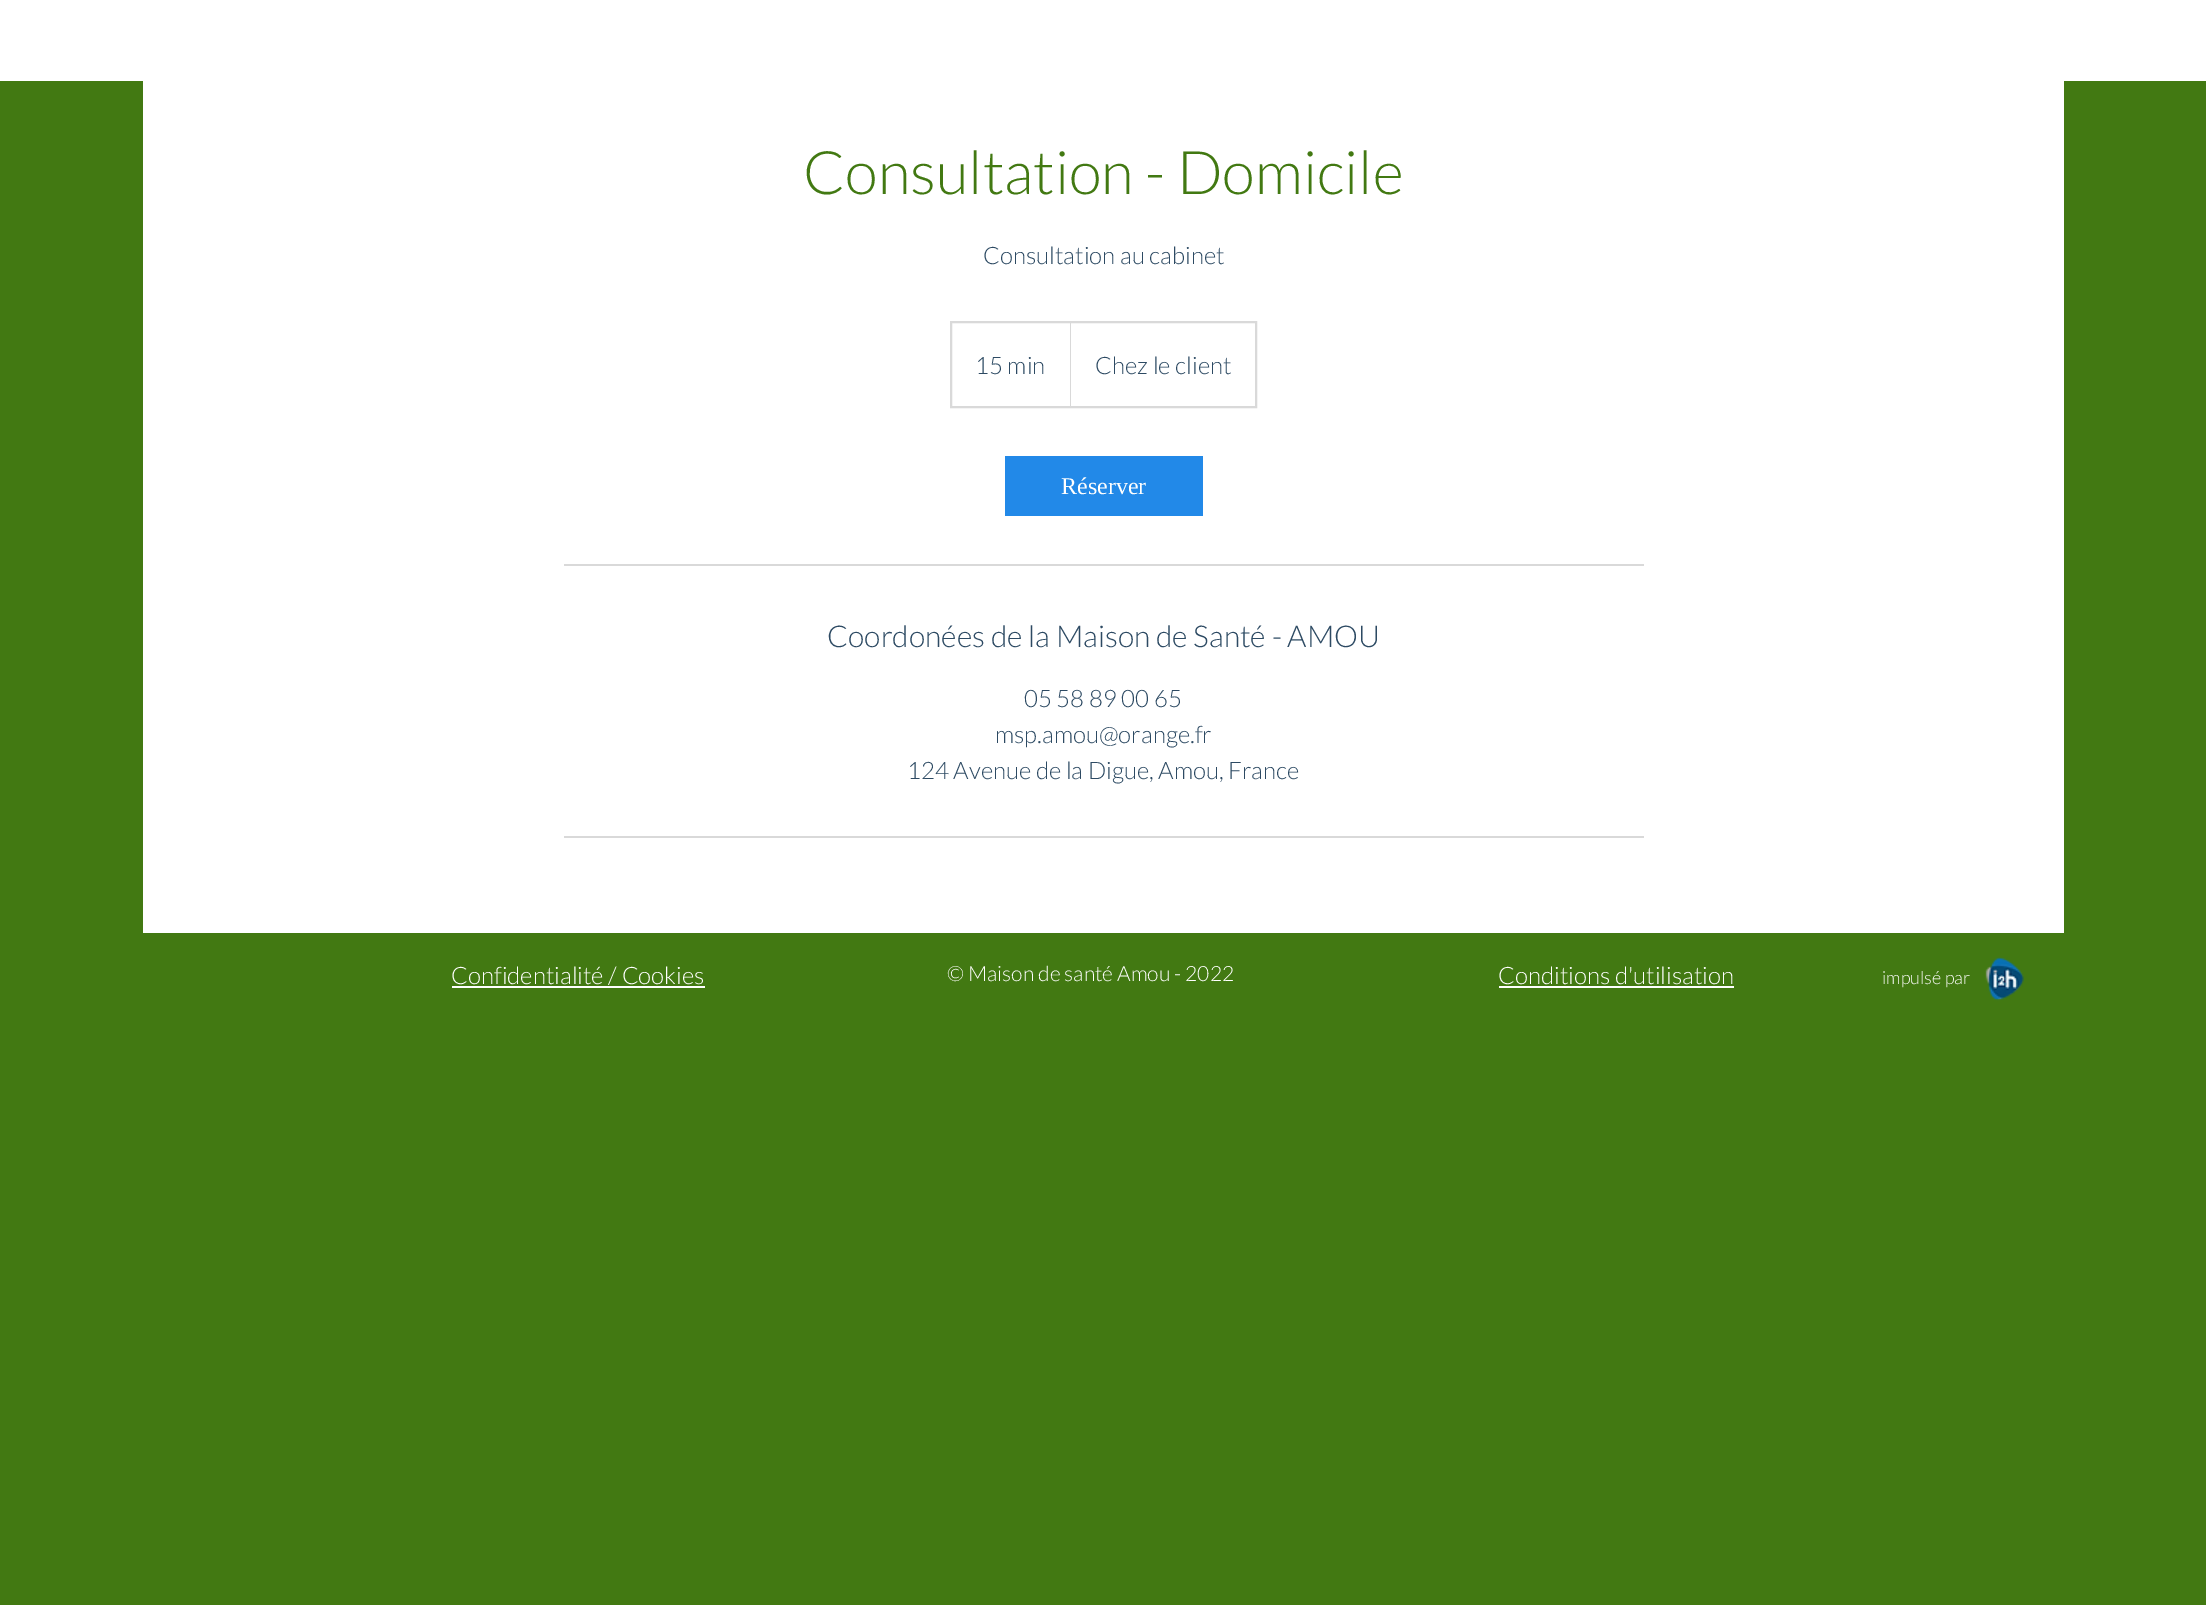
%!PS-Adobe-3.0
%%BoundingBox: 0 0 2206 1605
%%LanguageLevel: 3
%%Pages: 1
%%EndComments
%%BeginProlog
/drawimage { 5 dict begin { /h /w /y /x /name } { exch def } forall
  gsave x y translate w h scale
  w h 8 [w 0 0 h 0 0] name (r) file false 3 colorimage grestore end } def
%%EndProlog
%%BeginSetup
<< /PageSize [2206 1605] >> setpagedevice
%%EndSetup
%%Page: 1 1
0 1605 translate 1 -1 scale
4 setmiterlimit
0.259 0.475 0.071 setrgbcolor
0 0 2206 1605 rectfill
1 setgray
0 0 2206 81 rectfill
143 81 1921 852 rectfill
0.851 setgray
2 setlinewidth
951 322 305 85 rectstroke
newpath 1070 406 moveto 1070 321 lineto 1071 322 lineto 1071 406 lineto closepath fill
0.133 0.537 0.91 setrgbcolor
1005 456 198 60 rectfill
0.851 setgray
564 564 1080 2 rectfill
564 836 1080 2 rectfill
1 setgray
452 986 253 2 rectfill
1499 986 235 2 rectfill
(images/1.raw) 1985 957 39 44 drawimage
/Lato-Light [60 0 0 -60 0 0] selectfont
0.259 0.475 0.071 setrgbcolor
803 194 moveto (Consultation - Domicile) show
/Lato-Light [24 0 0 -24 0 0] selectfont
0.176 0.29 0.388 setrgbcolor
983 264 moveto (Consultation au cabinet) show
975 374 moveto (15 min) show
1095 374 moveto (Chez le client) show
/LiberationSerif-Regular [24 0 0 -24 0 0] selectfont
1 setgray
1061 494 moveto (Réserver) show
/Lato-Light [30 0 0 -30 0 0] selectfont
0.176 0.29 0.388 setrgbcolor
827 647 moveto (Coordonées de la Maison de Santé - AMOU) show
/Lato-Light [24 0 0 -24 0 0] selectfont
1024 707 moveto (05 58 89 00 65) show
995 743 moveto (msp.amou@orange.fr) show
907 779 moveto (124 Avenue de la Digue, Amou, France) show
1 setgray
451 984 moveto (Confidentialité / Cookies) show
/Lato-Light [21 0 0 -21 0 0] selectfont
947 981 moveto (© Maison de santé Amou - 2022) show
/Lato-Light [24 0 0 -24 0 0] selectfont
1498 984 moveto (Conditions d'utilisation) show
/Lato-Light [18 0 0 -18 0 0] selectfont
1882 984 moveto (impulsé par) show
showpage
%%EOF
